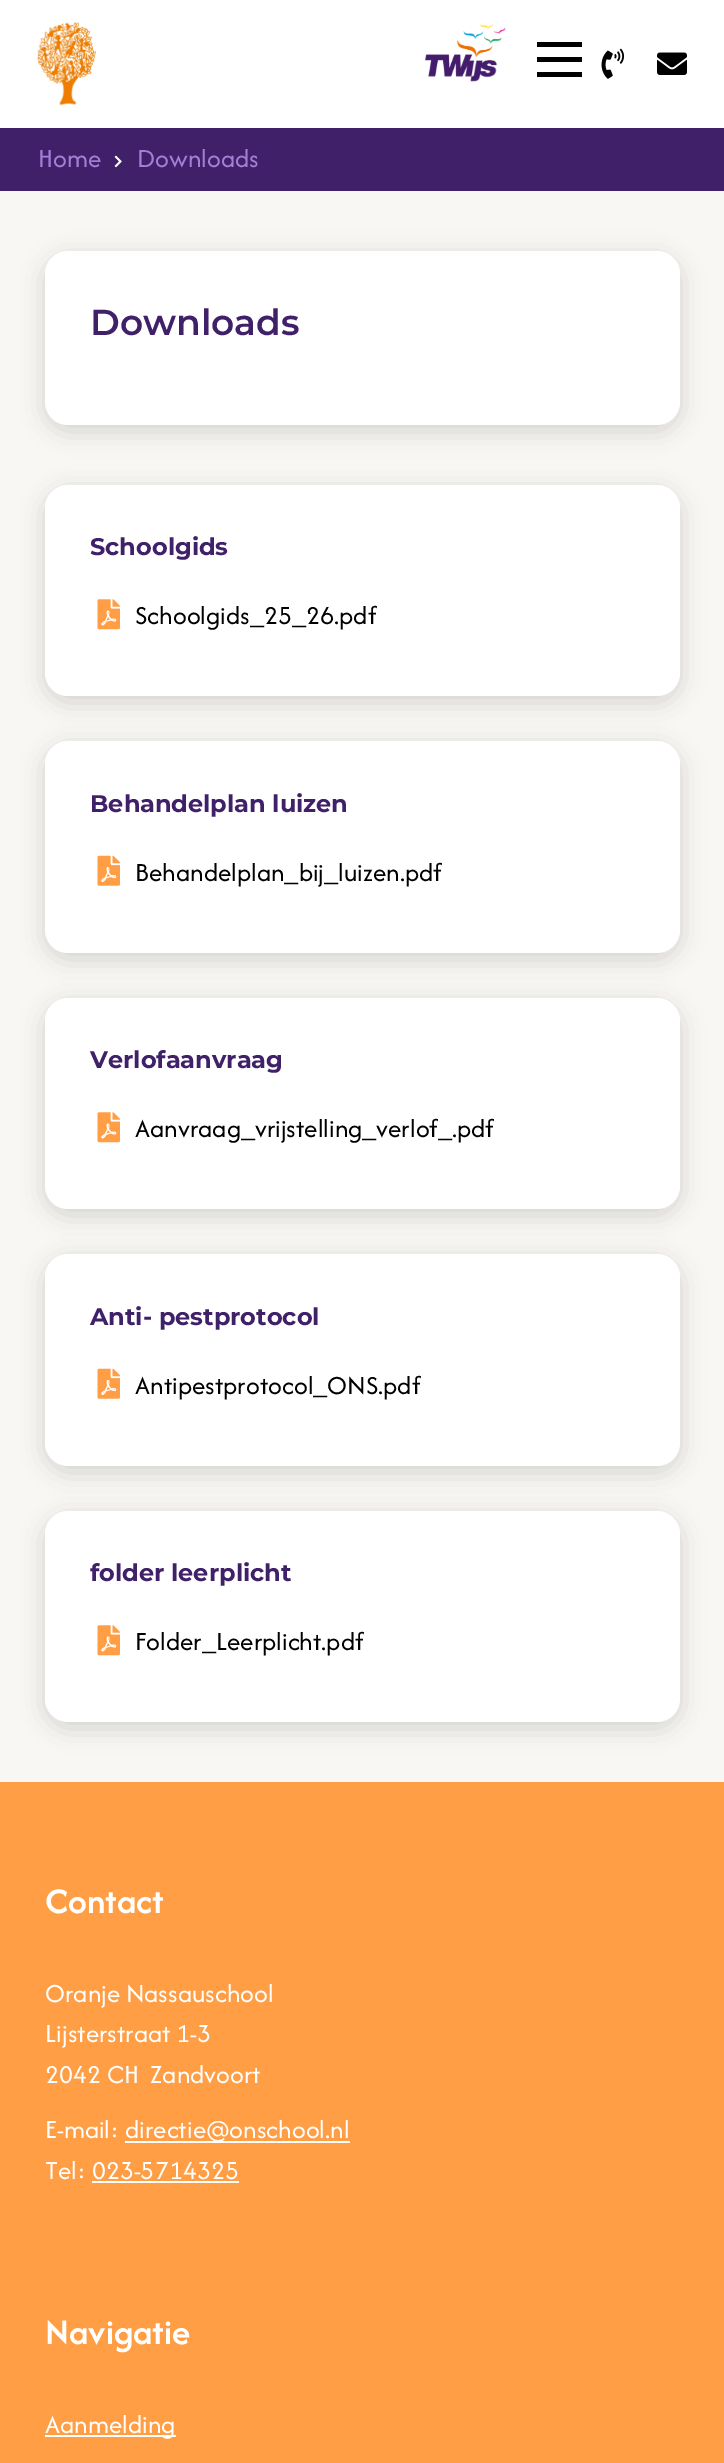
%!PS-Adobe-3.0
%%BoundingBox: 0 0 724 2463
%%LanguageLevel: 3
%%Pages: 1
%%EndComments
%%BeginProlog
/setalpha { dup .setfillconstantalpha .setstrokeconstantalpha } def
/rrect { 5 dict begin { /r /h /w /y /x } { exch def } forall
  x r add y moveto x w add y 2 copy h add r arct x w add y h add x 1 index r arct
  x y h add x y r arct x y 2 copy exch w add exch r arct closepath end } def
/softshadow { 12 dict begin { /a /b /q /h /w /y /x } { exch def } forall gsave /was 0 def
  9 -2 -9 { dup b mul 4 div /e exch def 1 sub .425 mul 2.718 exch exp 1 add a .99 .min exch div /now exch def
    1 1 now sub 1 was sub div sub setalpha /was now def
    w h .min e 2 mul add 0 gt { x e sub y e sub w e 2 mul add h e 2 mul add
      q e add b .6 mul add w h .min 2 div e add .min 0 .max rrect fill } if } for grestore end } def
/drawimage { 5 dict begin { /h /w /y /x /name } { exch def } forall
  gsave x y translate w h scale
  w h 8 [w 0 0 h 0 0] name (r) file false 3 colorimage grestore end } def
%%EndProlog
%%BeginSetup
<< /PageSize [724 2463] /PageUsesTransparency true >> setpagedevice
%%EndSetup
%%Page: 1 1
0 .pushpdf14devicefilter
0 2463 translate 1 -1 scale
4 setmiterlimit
0.973 0.969 0.953 setrgbcolor
0 0 724 2463 rectfill
1 setgray
0 0 724 128 rectfill
(images/1.raw) 37 22 59 84 drawimage
(images/2.raw) 425 24 81 58 drawimage
0 setgray
537 42 45 5 rectfill
537 57 45 5 rectfill
537 72 45 5 rectfill
(images/3.raw) 601 48 24 31 drawimage
(images/4.raw) 657 52 30 23 drawimage
0.251 0.129 0.412 setrgbcolor
0 128 724 63 rectfill
(images/5.raw) 114 155 8 13 drawimage
0 setgray
45 257 635 174 23 12 0.15 softshadow
1 setgray
45 251 635 174 23 rrect fill
0 setgray
45 491 635 211 23 12 0.15 softshadow
1 setgray
45 485 635 211 23 rrect fill
(images/6.raw) 97 599 23 31 drawimage
0 setgray
45 747 635 212 23 12 0.15 softshadow
1 setgray
45 741 635 212 23 rrect fill
(images/7.raw) 97 855 23 31 drawimage
0 setgray
45 1004 635 211 23 12 0.15 softshadow
1 setgray
45 998 635 211 23 rrect fill
(images/6.raw) 97 1112 23 31 drawimage
0 setgray
45 1260 635 212 23 12 0.15 softshadow
1 setgray
45 1254 635 212 23 rrect fill
(images/7.raw) 97 1368 23 31 drawimage
0 setgray
45 1517 635 211 23 12 0.15 softshadow
1 setgray
45 1511 635 211 23 rrect fill
(images/6.raw) 97 1625 23 31 drawimage
1 0.62 0.271 setrgbcolor
0 1782 724 681 rectfill
1 setgray
125 2141 225 2 rectfill
92 2181 147 2 rectfill
45 2435 131 2 rectfill
/AfacadFlux-Regular [27 0 0 -27 0 0] selectfont
0.647 0.498 0.843 setrgbcolor
38 167 moveto (Home) show
137 167 moveto (Downloads) show
/Montserrat-SemiBold [36 0 0 -36 0 0] selectfont
0.251 0.129 0.412 setrgbcolor
90 335 moveto (Downloads) show
/Montserrat-Bold [24 0 0 -24 0 0] selectfont
90 555 moveto (Schoolgids) show
/AfacadFlux-Regular [27 0 0 -27 0 0] selectfont
0 setgray
135 624 moveto (Schoolgids_25_26.pdf) show
/Montserrat-Bold [24 0 0 -24 0 0] selectfont
0.251 0.129 0.412 setrgbcolor
90 812 moveto (Behandelplan luizen) show
/AfacadFlux-Regular [27 0 0 -27 0 0] selectfont
0 setgray
135 881 moveto (Behandelplan_bij_luizen.pdf) show
/Montserrat-Bold [24 0 0 -24 0 0] selectfont
0.251 0.129 0.412 setrgbcolor
90 1068 moveto (Verlofaanvraag) show
/AfacadFlux-Regular [27 0 0 -27 0 0] selectfont
0 setgray
135 1137 moveto (Aanvraag_vrijstelling_verlof_.pdf) show
/Montserrat-Bold [24 0 0 -24 0 0] selectfont
0.251 0.129 0.412 setrgbcolor
90 1325 moveto (Anti- pestprotocol) show
/AfacadFlux-Regular [27 0 0 -27 0 0] selectfont
0 setgray
135 1394 moveto (Antipestprotocol_ONS.pdf) show
/Montserrat-Bold [24 0 0 -24 0 0] selectfont
0.251 0.129 0.412 setrgbcolor
90 1581 moveto (folder leerplicht) show
/AfacadFlux-Regular [27 0 0 -27 0 0] selectfont
0 setgray
135 1650 moveto (Folder_Leerplicht.pdf) show
/AfacadFlux-SemiBold [37.5 0 0 -37.5 0 0] selectfont
1 setgray
45 1913 moveto (Contact) show
/AfacadFlux-Regular [27 0 0 -27 0 0] selectfont
45 2002 moveto (Oranje Nassauschool) show
45 2042 moveto (Lijsterstraat 1-3) show
45 2083 moveto (2042 CH) show
150 2083 moveto (Zandvoort) show
45 2138 moveto (E-mail:) show
125 2138 moveto (directie@onschool.nl) show
45 2179 moveto (Tel: 023-5714325) show
/AfacadFlux-SemiBold [37.5 0 0 -37.5 0 0] selectfont
45 2344 moveto (Navigatie) show
/AfacadFlux-Regular [27 0 0 -27 0 0] selectfont
45 2433 moveto (Aanmelding) show
.poppdf14devicefilter showpage
%%EOF
